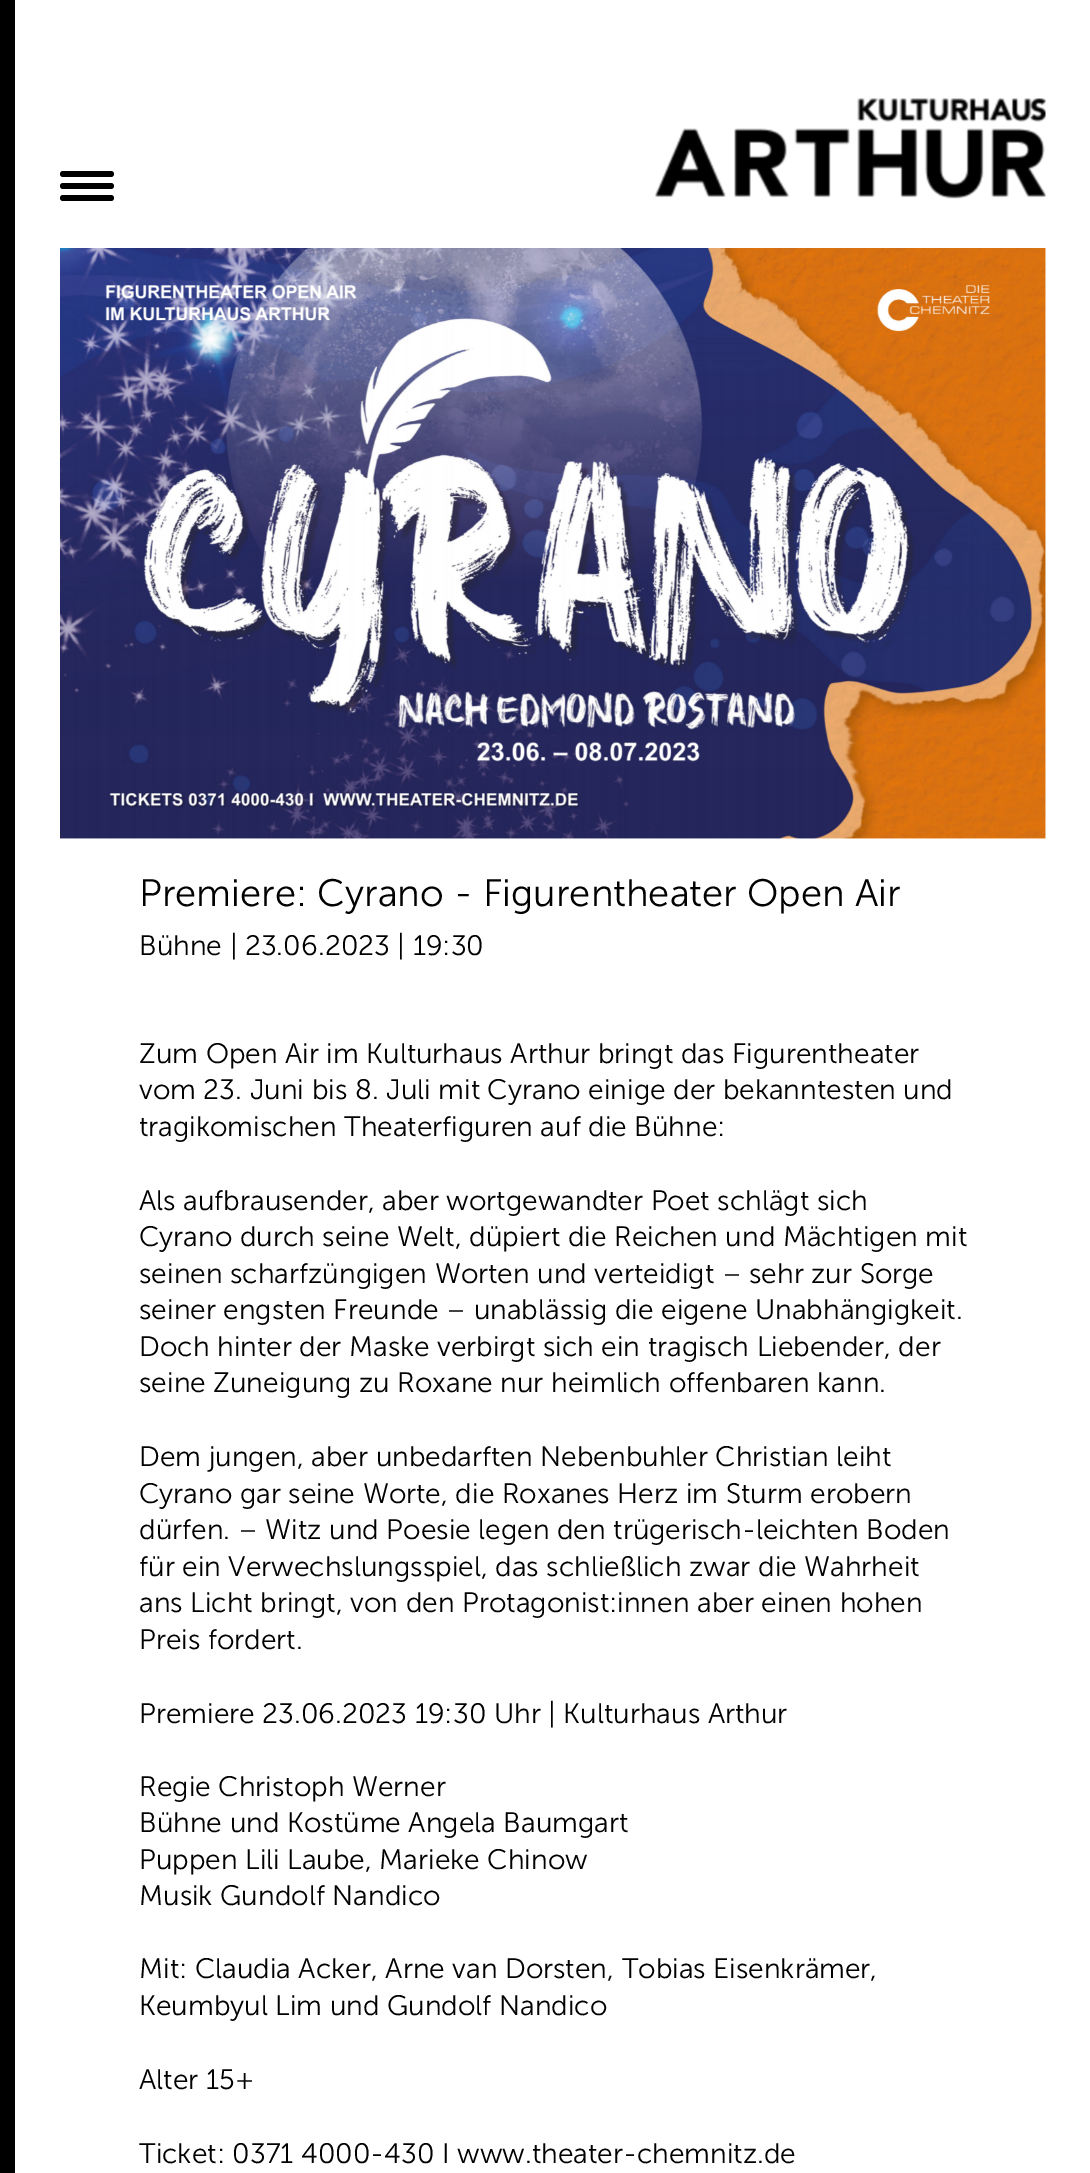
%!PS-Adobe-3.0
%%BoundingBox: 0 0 1090 2173
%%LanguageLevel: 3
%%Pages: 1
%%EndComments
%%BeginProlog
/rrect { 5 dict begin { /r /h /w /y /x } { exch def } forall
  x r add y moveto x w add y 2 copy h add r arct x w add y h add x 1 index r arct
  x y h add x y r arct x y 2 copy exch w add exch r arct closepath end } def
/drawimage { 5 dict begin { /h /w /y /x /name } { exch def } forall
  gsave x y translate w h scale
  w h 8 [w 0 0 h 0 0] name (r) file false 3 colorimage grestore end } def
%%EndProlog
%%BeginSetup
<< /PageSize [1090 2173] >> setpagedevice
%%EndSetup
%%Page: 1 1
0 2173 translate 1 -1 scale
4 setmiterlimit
0 setgray
0 0 1090 2173 rectfill
1 setgray
15 0 1075 2173 rectfill
0 setgray
60 183 54 6 3 rrect fill
60 171 54 6 3 rrect fill
60 195 54 6 3 rrect fill
(images/1.raw) 655 98 391 101 drawimage
(images/2.raw) 60 248 986 591 drawimage
/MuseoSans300-Light [38.1 0 0 -38.1 0 0] selectfont
139 906 moveto (Premiere: Cyrano - Figurentheater Open Air) show
/MuseoSans300-Light [28.1 0 0 -28.1 0 0] selectfont
139 955 moveto (Bühne | 23.06.2023 | 19:30) show
139 1063 moveto (Zum Open Air im Kulturhaus Arthur bringt das Figurentheater) show
139 1099 moveto (vom 23. Juni bis 8. Juli mit Cyrano einige der bekanntesten und) show
139 1136 moveto (tragikomischen Theaterfiguren auf die Bühne:) show
139 1210 moveto (Als aufbrausender, aber wortgewandter Poet schlägt sich) show
139 1246 moveto (Cyrano durch seine Welt, düpiert die Reichen und Mächtigen mit) show
139 1283 moveto (seinen scharfzüngigen Worten und verteidigt – sehr zur Sorge) show
139 1319 moveto (seiner engsten Freunde – unablässig die eigene Unabhängigkeit.) show
139 1356 moveto (Doch hinter der Maske verbirgt sich ein tragisch Liebender, der) show
139 1392 moveto (seine Zuneigung zu Roxane nur heimlich offenbaren kann.) show
139 1466 moveto (Dem jungen, aber unbedarften Nebenbuhler Christian leiht) show
139 1503 moveto (Cyrano gar seine Worte, die Roxanes Herz im Sturm erobern) show
139 1539 moveto (dürfen. – Witz und Poesie legen den trügerisch-leichten Boden) show
139 1576 moveto (für ein Verwechslungsspiel, das schließlich zwar die Wahrheit) show
139 1612 moveto (ans Licht bringt, von den Protagonist:innen aber einen hohen) show
139 1649 moveto (Preis fordert.) show
139 1723 moveto (Premiere 23.06.2023 19:30 Uhr | Kulturhaus Arthur) show
139 1796 moveto (Regie Christoph Werner) show
139 1832 moveto (Bühne und Kostüme Angela Baumgart) show
139 1869 moveto (Puppen Lili Laube, Marieke Chinow) show
139 1905 moveto (Musik Gundolf Nandico) show
139 1978 moveto (Mit: Claudia Acker, Arne van Dorsten, Tobias Eisenkrämer,) show
139 2015 moveto (Keumbyul Lim und Gundolf Nandico) show
139 2089 moveto (Alter 15+) show
139 2163 moveto (Ticket: 0371 4000-430 I www.theater-chemnitz.de) show
showpage
%%EOF
